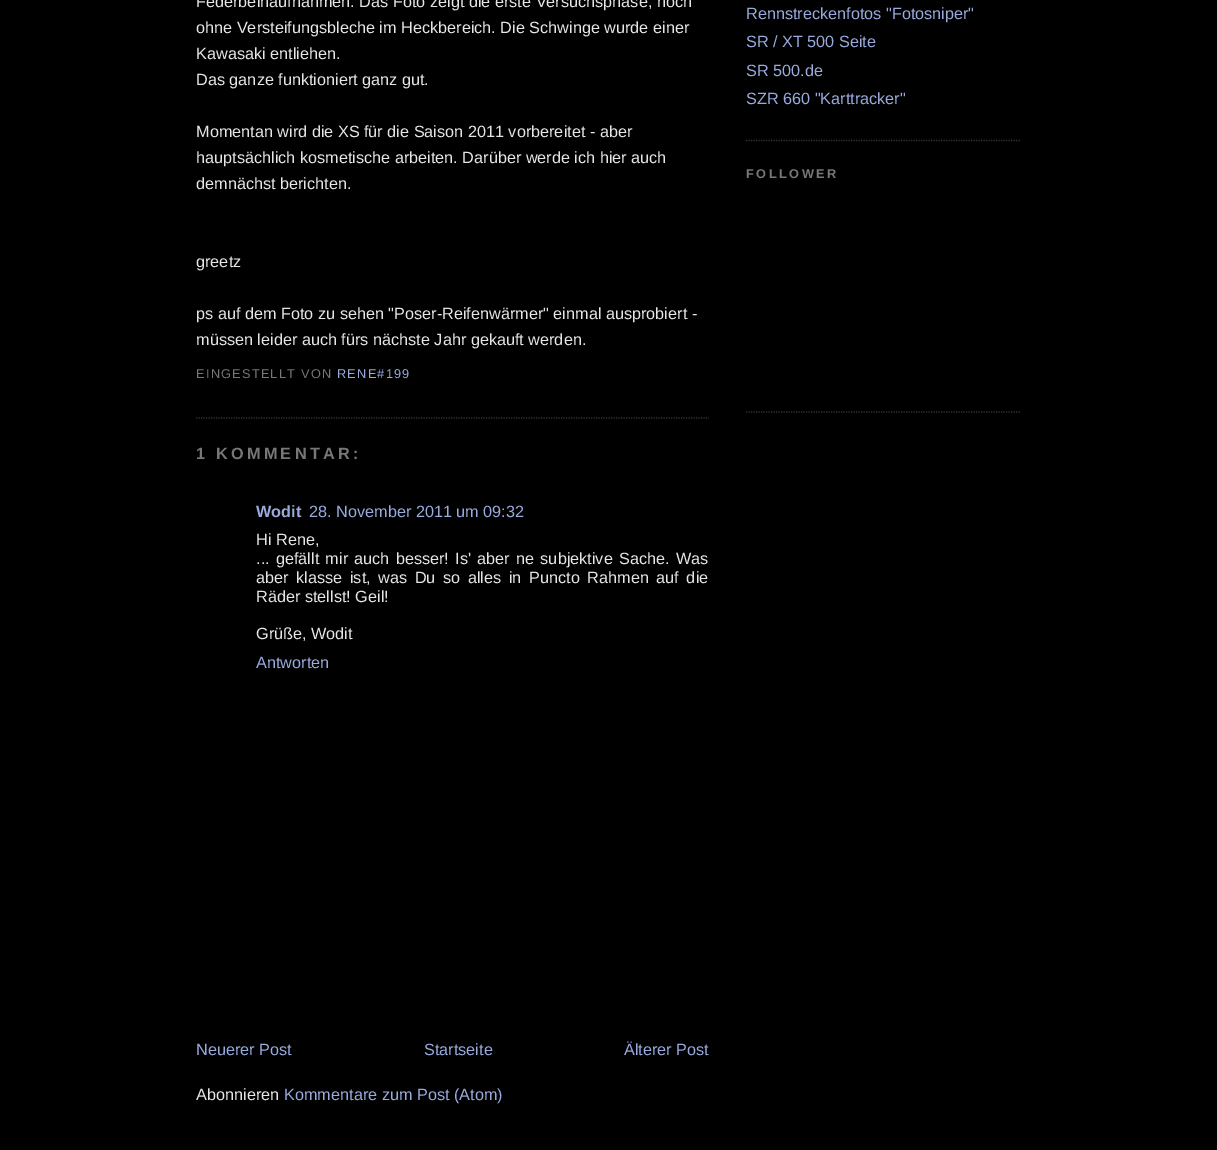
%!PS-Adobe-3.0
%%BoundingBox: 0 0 1217 1150
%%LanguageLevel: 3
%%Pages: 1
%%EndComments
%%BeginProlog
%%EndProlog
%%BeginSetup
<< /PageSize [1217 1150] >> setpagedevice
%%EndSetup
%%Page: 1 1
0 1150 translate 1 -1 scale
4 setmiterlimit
0 setgray
0 0 1217 1150 rectfill
0.2 setgray
1.2 setlinewidth
[1.25 1.25] 0 setdash
newpath 196 418 moveto 709 418 lineto stroke
newpath 746 140.5 moveto 1021 140.5 lineto stroke
newpath 746 412 moveto 1021 412 lineto stroke
/LiberationSans-Regular [16.25 0 0 -16.25 0 0] selectfont
0.902 setgray
196 7 moveto (Federbeinaufnahmen. Das Foto zeigt die erste Versuchsphase, noch) show
196 33 moveto (ohne Versteifungsbleche im Heckbereich. Die Schwinge wurde einer) show
196 59 moveto (Kawasaki entliehen.) show
196 85 moveto (Das ganze funktioniert ganz gut.) show
196 137 moveto (Momentan wird die XS für die Saison 2011 vorbereitet - aber) show
196 163 moveto (hauptsächlich kosmetische arbeiten. Darüber werde ich hier auch) show
196 189 moveto (demnächst berichten.) show
196 267 moveto (greetz) show
196 319 moveto (ps auf dem Foto zu sehen "Poser-Reifenwärmer" einmal ausprobiert -) show
196 345 moveto (müssen leider auch fürs nächste Jahr gekauft werden.) show
/LiberationSans-Regular [12.75 0 0 -12.75 0 0] selectfont
0.467 setgray
196 378 moveto 1.25 0 (EINGESTELLT VON) ashow
0.6 0.667 0.867 setrgbcolor
337 378 moveto 1.25 0 (RENE#199) ashow
/LiberationSans-Bold [16.25 0 0 -16.25 0 0] selectfont
0.467 setgray
196 459 moveto 3.25 0 (1 KOMMENTAR:) ashow
0.6 0.667 0.867 setrgbcolor
256 517 moveto (Wodit) show
/LiberationSans-Regular [16.25 0 0 -16.25 0 0] selectfont
309 517 moveto (28. November 2011 um 09:32) show
0.902 setgray
256 545 moveto (Hi Rene,) show
256 564 moveto 1.75 0 32 (... gefällt mir auch besser! Is' aber ne subjektive Sache. Was) widthshow
256 583 moveto 3.1 0 32 (aber klasse ist, was Du so alles in Puncto Rahmen auf die) widthshow
256 602 moveto (Räder stellst! Geil!) show
256 639 moveto (Grüße, Wodit) show
0.6 0.667 0.867 setrgbcolor
256 668 moveto (Antworten) show
196 1055 moveto (Neuerer Post) show
424 1055 moveto (Startseite) show
624 1055 moveto (Älterer Post) show
0.902 setgray
196 1100 moveto (Abonnieren) show
0.6 0.667 0.867 setrgbcolor
284 1100 moveto (Kommentare zum Post \(Atom\)) show
746 19 moveto (Rennstreckenfotos "Fotosniper") show
746 47 moveto (SR / XT 500 Seite) show
746 76 moveto (SR 500.de) show
746 104 moveto (SZR 660 "Karttracker") show
/LiberationSans-Bold [12.75 0 0 -12.75 0 0] selectfont
0.467 setgray
746 178 moveto 2.5 0 (FOLLOWER) ashow
showpage
%%EOF
